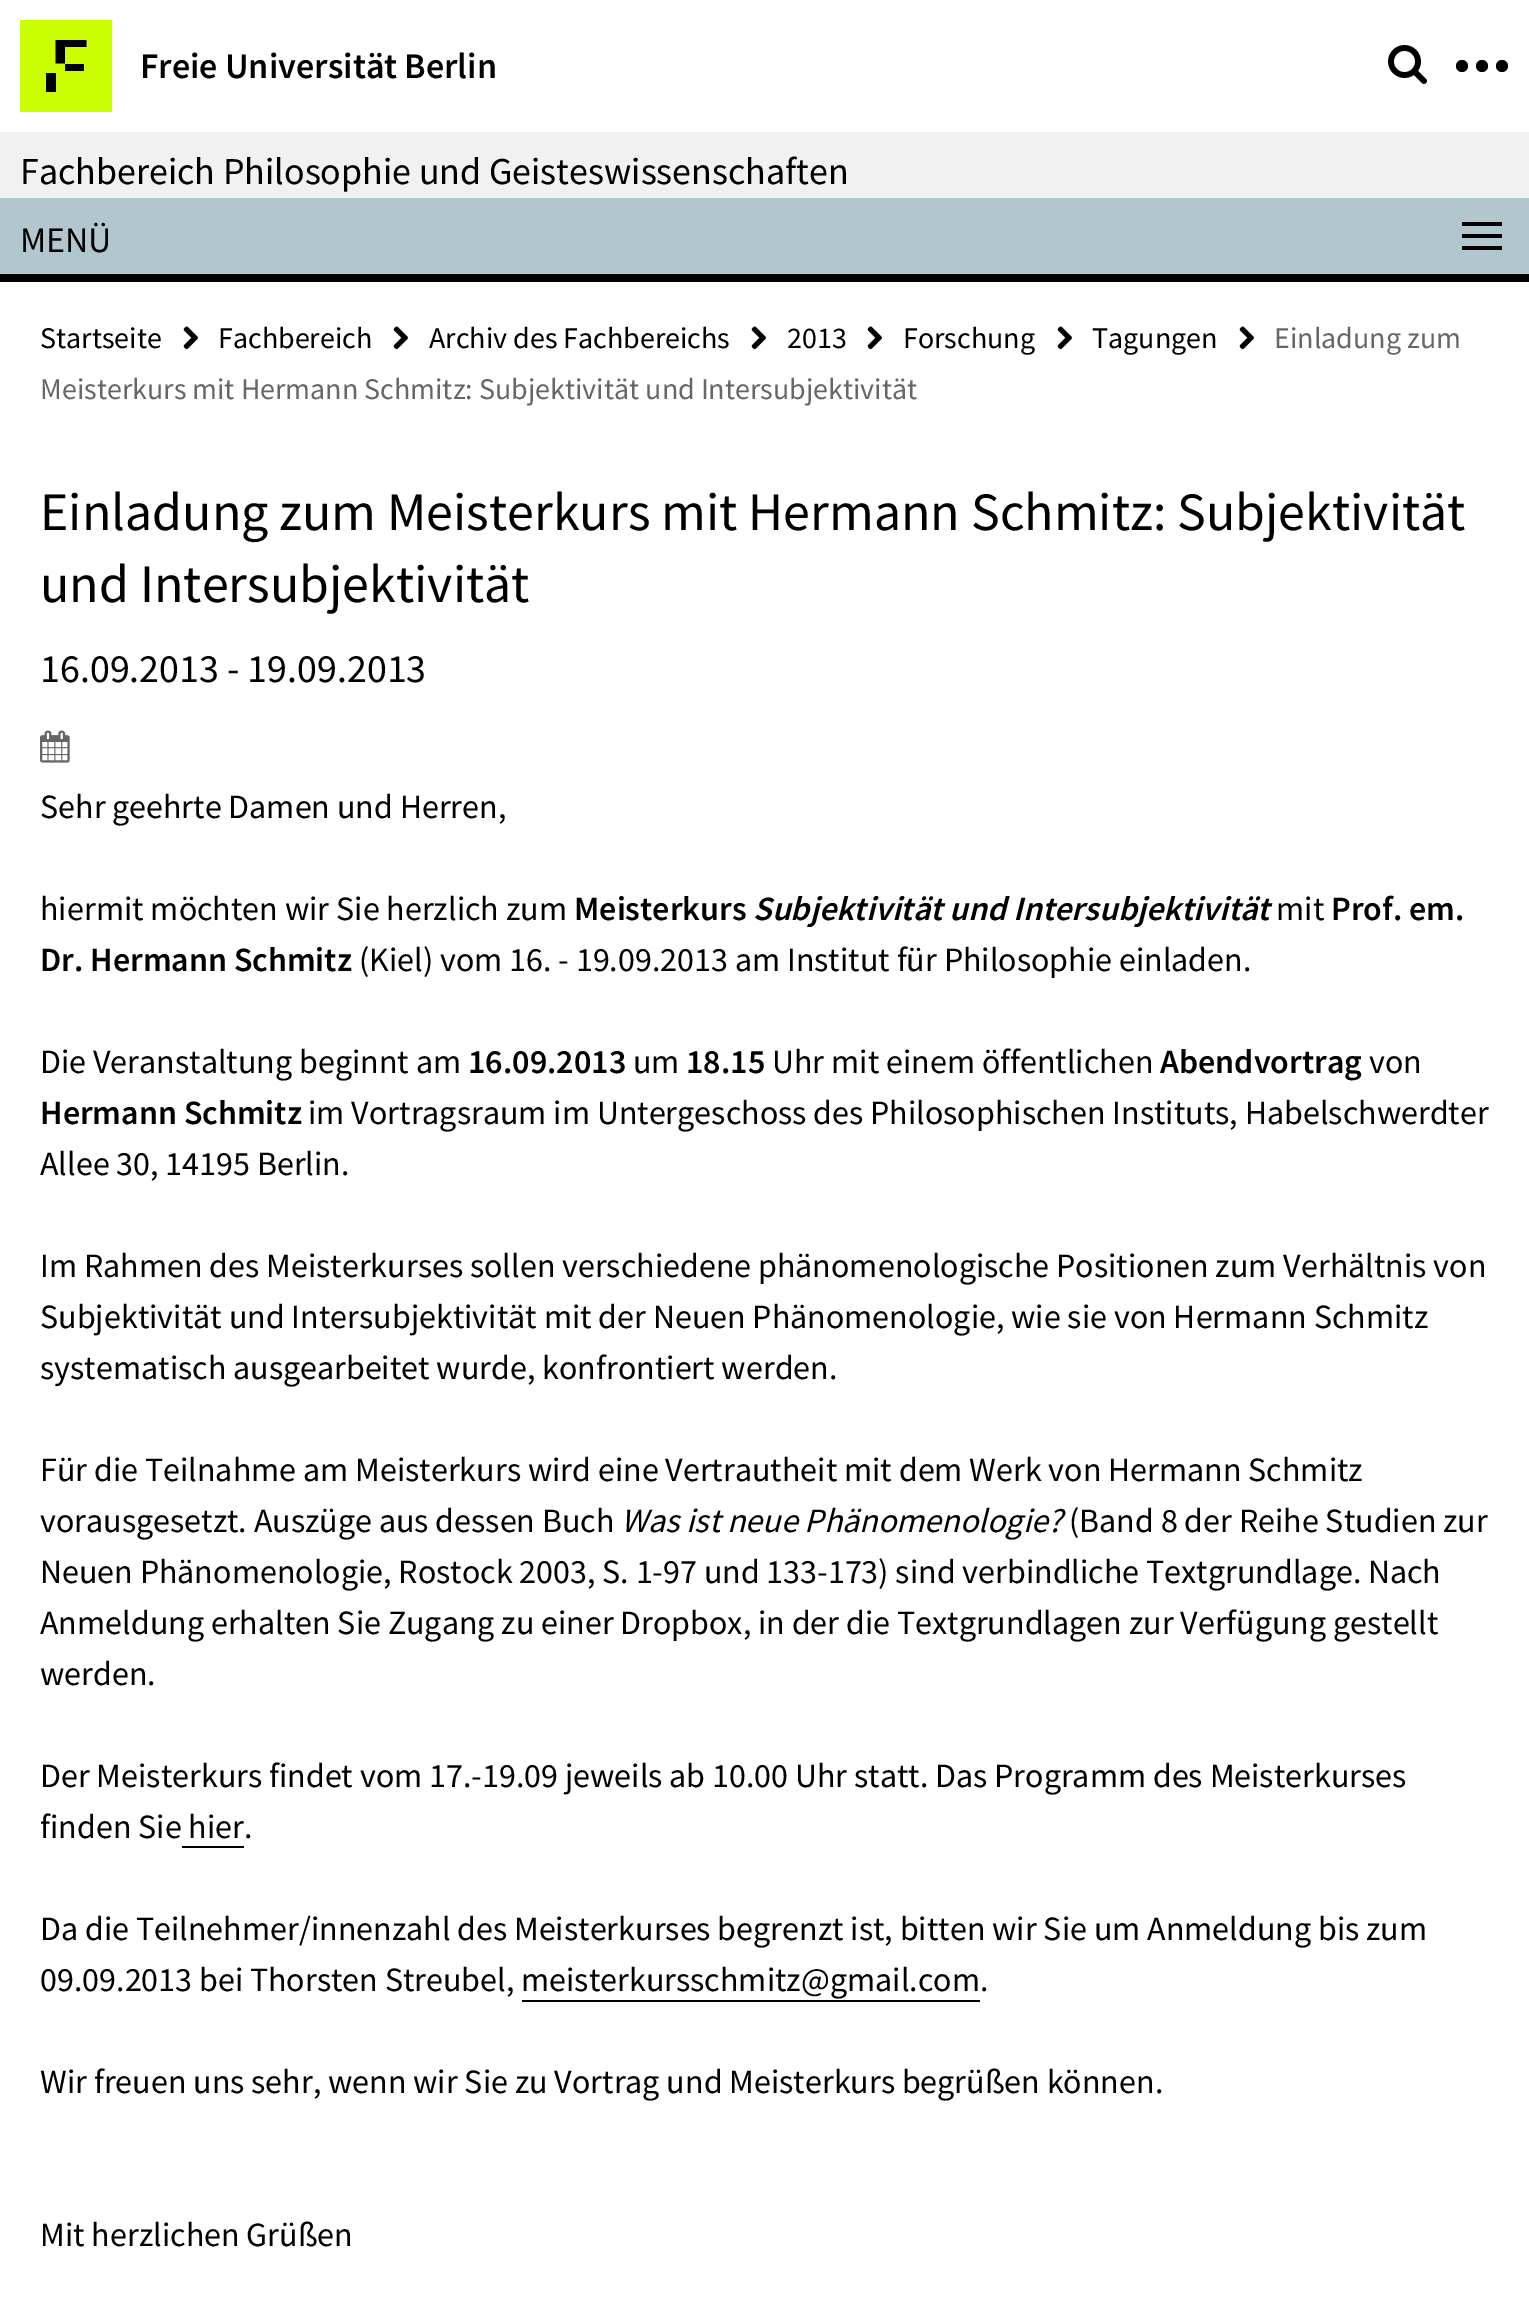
%!PS-Adobe-3.0
%%BoundingBox: 0 0 1529 2300
%%LanguageLevel: 3
%%Pages: 1
%%EndComments
%%BeginProlog
/drawimage { 5 dict begin { /h /w /y /x /name } { exch def } forall
  gsave x y translate w h scale
  w h 8 [w 0 0 h 0 0] name (r) file false 3 colorimage grestore end } def
%%EndProlog
%%BeginSetup
<< /PageSize [1529 2300] >> setpagedevice
%%EndSetup
%%Page: 1 1
0 2300 translate 1 -1 scale
4 setmiterlimit
1 setgray
0 0 1529 2300 rectfill
0.8 1 0 setrgbcolor
20 20 92 92 rectfill
0 setgray
newpath 55.5 40 moveto 86.5 40 lineto 86.5 47 lineto 65 47 lineto 65 63.5 lineto 55.5 63.5 lineto closepath fill
65 64 19 7 rectfill
46 73 10 19 rectfill
(images/1.raw) 1388 45 39 39 drawimage
newpath 1462 66 6 0 360 arc closepath fill
newpath 1482 66 6 0 360 arc closepath fill
newpath 1502 66 6 0 360 arc closepath fill
0.945 setgray
0 132 1529 66 rectfill
0.698 0.78 0.804 setrgbcolor
0 198 1529 76 rectfill
0 setgray
0 274 1529 8 rectfill
1462 222 40 4 rectfill
1462 234 40 4 rectfill
1462 246 40 4 rectfill
(images/2.raw) 183 326 15 24 drawimage
(images/2.raw) 393 326 15 24 drawimage
(images/2.raw) 751 326 15 24 drawimage
(images/2.raw) 867 326 15 24 drawimage
(images/2.raw) 1057 326 15 24 drawimage
(images/2.raw) 1239 326 15 24 drawimage
(images/3.raw) 40 730 30 33 drawimage
182 1846 62 2 rectfill
522 2000 458 2 rectfill
/SourceSansPro-SemiBold [36 0 0 -36 0 0] selectfont
140 78 moveto (Freie Universität Berlin) show
/SourceSansPro-Regular [38 0 0 -38 0 0] selectfont
20 184 moveto (Fachbereich Philosophie und Geisteswissenschaften) show
/SourceSansPro-Regular [36 0 0 -36 0 0] selectfont
20 252 moveto (MENÜ) show
/SourceSansPro-Regular [30 0 0 -30 0 0] selectfont
40 348 moveto (Startseite) show
218 348 moveto (Fachbereich) show
429 348 moveto (Archiv des Fachbereichs) show
787 348 moveto (2013) show
903 348 moveto (Forschung) show
1092 348 moveto (Tagungen) show
0.4 setgray
1274 348 moveto (Einladung zum) show
40 399 moveto (Meisterkurs mit Hermann Schmitz: Subjektivität und Intersubjektivität) show
/SourceSansPro-Regular [54 0 0 -54 0 0] selectfont
0 setgray
40 530 moveto (Einladung zum Meisterkurs mit Hermann Schmitz: Subjektivität) show
40 602 moveto (und Intersubjektivität) show
/SourceSansPro-Regular [40 0 0 -40 0 0] selectfont
40 682 moveto (16.09.2013 - 19.09.2013) show
/SourceSansPro-Regular [34 0 0 -34 0 0] selectfont
40 818 moveto (Sehr geehrte Damen und Herren,) show
40 920 moveto (hiermit möchten wir Sie herzlich zum) show
/SourceSansPro-SemiBold [34 0 0 -34 0 0] selectfont
574 920 moveto (Meisterkurs) show
/SourceSansPro-SemiBoldItalic [34 0 0 -34 0 0] selectfont
753 920 moveto (Subjektivität und Intersubjektivität) show
/SourceSansPro-Regular [34 0 0 -34 0 0] selectfont
1276 920 moveto (mit) show
/SourceSansPro-SemiBold [34 0 0 -34 0 0] selectfont
1331 920 moveto (Prof. em.) show
40 971 moveto (Dr. Hermann Schmitz) show
/SourceSansPro-Regular [34 0 0 -34 0 0] selectfont
359 971 moveto (\(Kiel\) vom 16. - 19.09.2013 am Institut für Philosophie einladen.) show
40 1073 moveto (Die Veranstaltung beginnt am) show
/SourceSansPro-SemiBold [34 0 0 -34 0 0] selectfont
468 1073 moveto (16.09.2013) show
/SourceSansPro-Regular [34 0 0 -34 0 0] selectfont
633 1073 moveto (um) show
/SourceSansPro-SemiBold [34 0 0 -34 0 0] selectfont
686 1073 moveto (18.15) show
/SourceSansPro-Regular [34 0 0 -34 0 0] selectfont
772 1073 moveto (Uhr mit einem öffentlichen) show
/SourceSansPro-SemiBold [34 0 0 -34 0 0] selectfont
1160 1073 moveto (Abendvortrag) show
/SourceSansPro-Regular [34 0 0 -34 0 0] selectfont
1369 1073 moveto (von) show
/SourceSansPro-SemiBold [34 0 0 -34 0 0] selectfont
40 1124 moveto (Hermann Schmitz) show
/SourceSansPro-Regular [34 0 0 -34 0 0] selectfont
308 1124 moveto (im Vortragsraum im Untergeschoss des Philosophischen Instituts, Habelschwerdter) show
40 1175 moveto (Allee 30, 14195 Berlin.) show
40 1277 moveto (Im Rahmen des Meisterkurses sollen verschiedene phänomenologische Positionen zum Verhältnis von) show
40 1328 moveto (Subjektivität und Intersubjektivität mit der Neuen Phänomenologie, wie sie von Hermann Schmitz) show
40 1379 moveto (systematisch ausgearbeitet wurde, konfrontiert werden.) show
40 1481 moveto (Für die Teilnahme am Meisterkurs wird eine Vertrautheit mit dem Werk von Hermann Schmitz) show
40 1532 moveto (vorausgesetzt. Auszüge aus dessen Buch) show
/SourceSansPro-Italic [34 0 0 -34 0 0] selectfont
621 1532 moveto (Was ist neue Phänomenologie?) show
/SourceSansPro-Regular [34 0 0 -34 0 0] selectfont
1069 1532 moveto (\(Band 8 der Reihe Studien zur) show
40 1583 moveto (Neuen Phänomenologie, Rostock 2003, S. 1-97 und 133-173\) sind verbindliche Textgrundlage. Nach) show
40 1634 moveto (Anmeldung erhalten Sie Zugang zu einer Dropbox, in der die Textgrundlagen zur Verfügung gestellt) show
40 1685 moveto (werden.) show
40 1787 moveto (Der Meisterkurs findet vom 17.-19.09 jeweils ab 10.00 Uhr statt. Das Programm des Meisterkurses) show
40 1838 moveto (finden Sie hier.) show
40 1940 moveto (Da die Teilnehmer/innenzahl des Meisterkurses begrenzt ist, bitten wir Sie um Anmeldung bis zum) show
40 1991 moveto (09.09.2013 bei Thorsten Streubel, meisterkursschmitz@gmail.com.) show
40 2093 moveto (Wir freuen uns sehr, wenn wir Sie zu Vortrag und Meisterkurs begrüßen können.) show
40 2246 moveto (Mit herzlichen Grüßen) show
showpage
%%EOF
